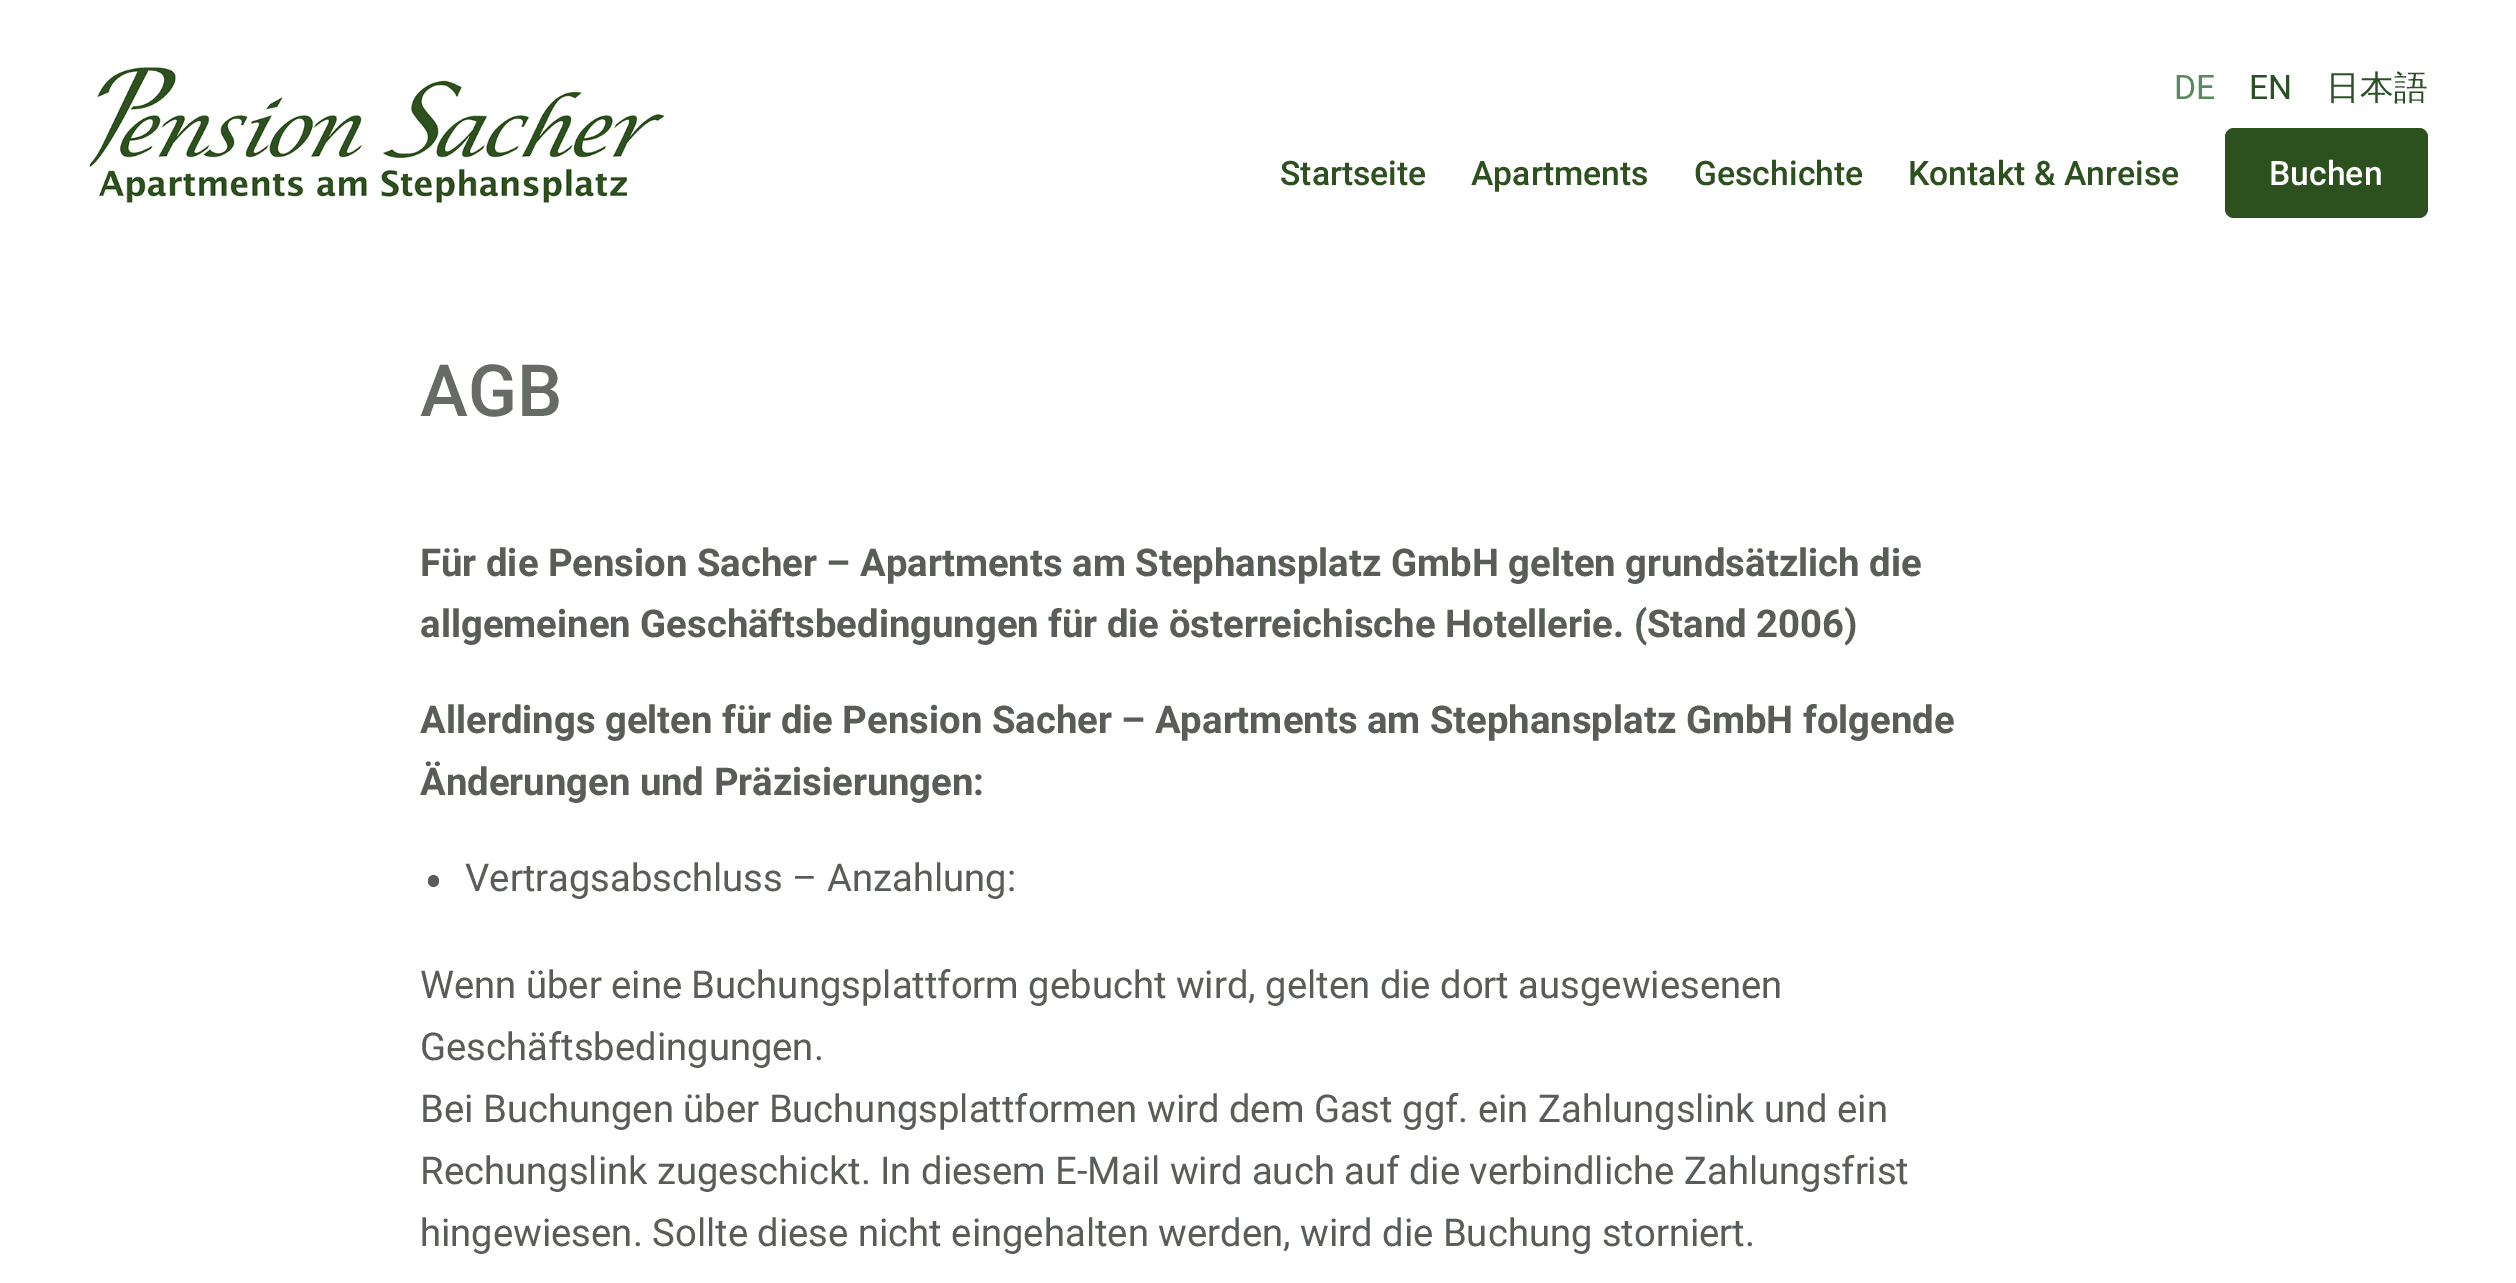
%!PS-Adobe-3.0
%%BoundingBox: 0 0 2516 1283
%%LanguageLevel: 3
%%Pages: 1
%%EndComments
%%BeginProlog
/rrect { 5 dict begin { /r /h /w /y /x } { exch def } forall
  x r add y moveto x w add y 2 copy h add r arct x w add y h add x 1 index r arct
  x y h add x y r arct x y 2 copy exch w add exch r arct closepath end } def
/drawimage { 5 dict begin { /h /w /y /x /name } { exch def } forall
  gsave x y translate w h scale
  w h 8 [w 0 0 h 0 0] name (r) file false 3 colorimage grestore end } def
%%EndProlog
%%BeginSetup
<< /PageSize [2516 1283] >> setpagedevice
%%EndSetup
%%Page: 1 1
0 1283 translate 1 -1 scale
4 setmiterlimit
1 setgray
0 0 2516 1283 rectfill
(images/1.raw) 90 67 574 136 drawimage
0.173 0.314 0.118 setrgbcolor
2225 128 203 90 9 rrect fill
0.345 0.365 0.345 setrgbcolor
428 875 11 12 5.5 rrect fill
/Roboto-Regular [33.75 0 0 -33.75 0 0] selectfont
0.349 0.541 0.369 setrgbcolor
2174 99 moveto (DE) show
0.165 0.318 0.145 setrgbcolor
2249 99 moveto (EN) show
/WenQuanYiZenHei-Medium [33.75 0 0 -33.75 0 0] selectfont
2326 99 moveto (日本語) show
/Roboto-Medium [33.75 0 0 -33.75 0 0] selectfont
0.173 0.314 0.118 setrgbcolor
1280 185 moveto (Startseite) show
1471 185 moveto (Apartments) show
1694 185 moveto (Geschichte) show
1908 185 moveto (Kontakt & Anreise) show
1 setgray
2269 185 moveto (Buchen) show
/Roboto-Medium [72 0 0 -72 0 0] selectfont
0.4 0.424 0.396 setrgbcolor
420 416 moveto (AGB) show
/Roboto-Bold [38.25 0 0 -38.25 0 0] selectfont
0.345 0.365 0.345 setrgbcolor
420 576 moveto (Für die Pension Sacher – Apartments am Stephansplatz GmbH gelten grundsätzlich die) show
420 637 moveto (allgemeinen Geschäftsbedingungen für die österreichische Hotellerie. \(Stand 2006\)) show
420 733 moveto (Allerdings gelten für die Pension Sacher – Apartments am Stephansplatz GmbH folgende) show
420 795 moveto (Änderungen und Präzisierungen:) show
/Roboto-Regular [38.25 0 0 -38.25 0 0] selectfont
465 891 moveto (Vertragsabschluss – Anzahlung:) show
420 998 moveto (Wenn über eine Buchungsplattform gebucht wird, gelten die dort ausgewiesenen) show
420 1060 moveto (Geschäftsbedingungen.) show
420 1122 moveto (Bei Buchungen über Buchungsplattformen wird dem Gast ggf. ein Zahlungslink und ein) show
420 1184 moveto (Rechungslink zugeschickt. In diesem E-Mail wird auch auf die verbindliche Zahlungsfrist) show
420 1246 moveto (hingewiesen. Sollte diese nicht eingehalten werden, wird die Buchung storniert.) show
showpage
%%EOF
